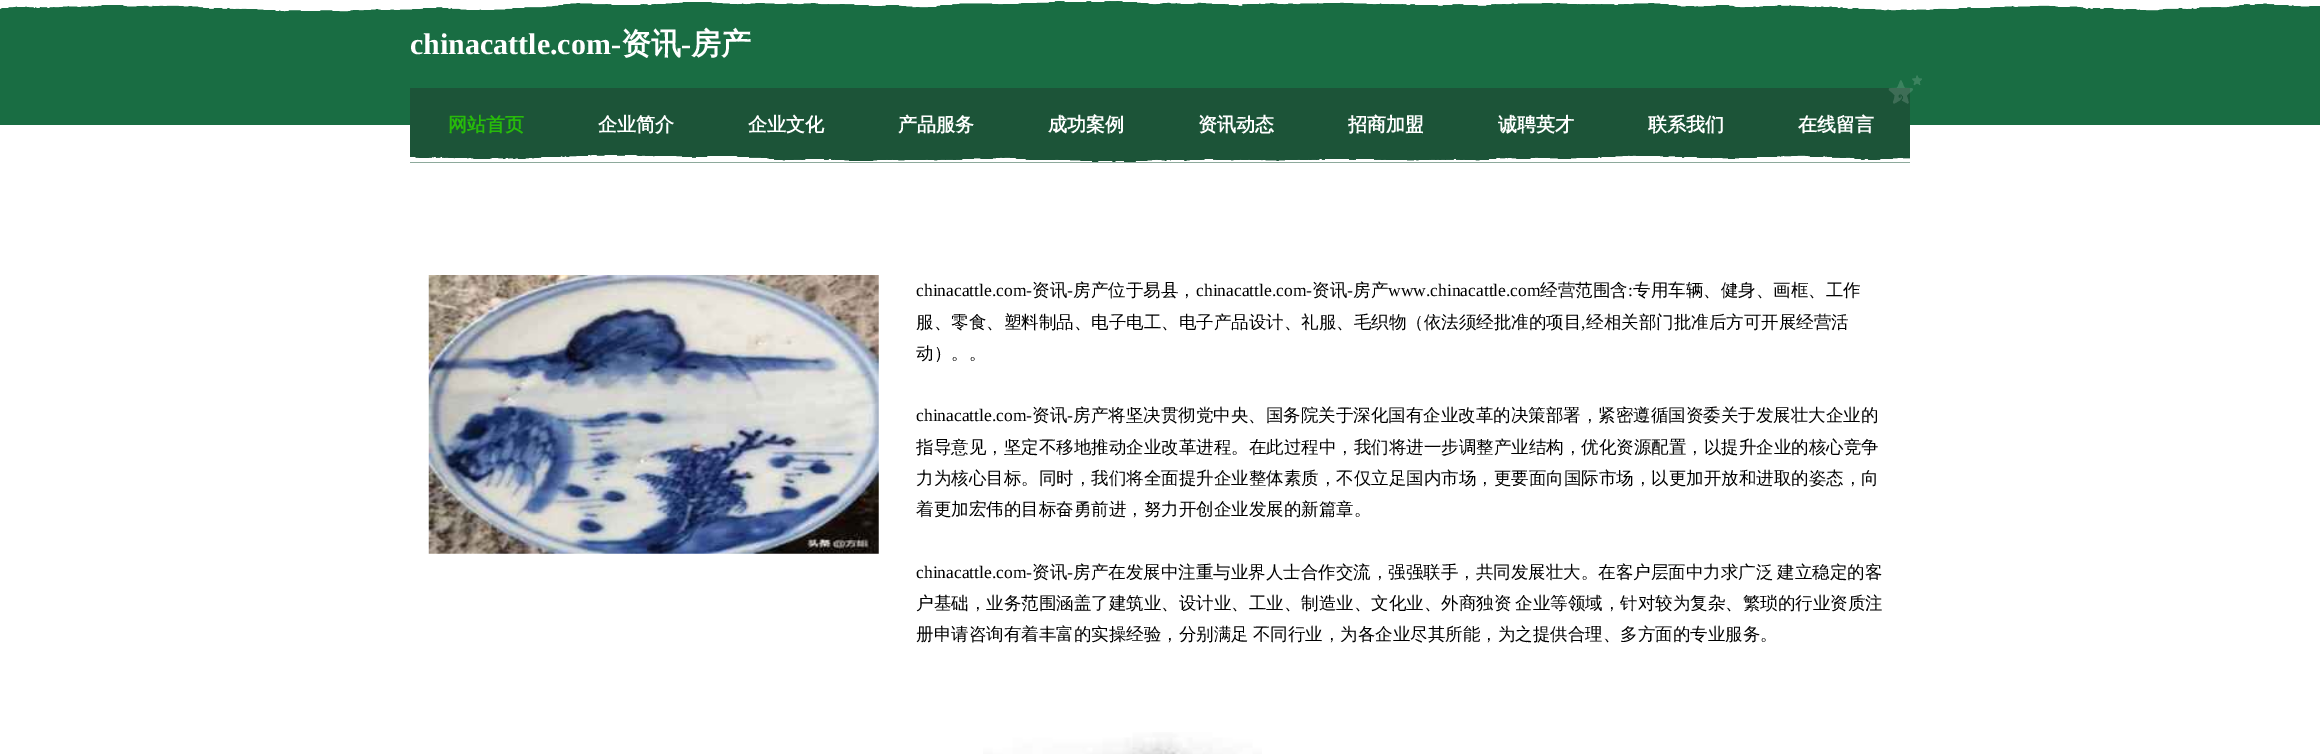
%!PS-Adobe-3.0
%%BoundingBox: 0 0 2320 754
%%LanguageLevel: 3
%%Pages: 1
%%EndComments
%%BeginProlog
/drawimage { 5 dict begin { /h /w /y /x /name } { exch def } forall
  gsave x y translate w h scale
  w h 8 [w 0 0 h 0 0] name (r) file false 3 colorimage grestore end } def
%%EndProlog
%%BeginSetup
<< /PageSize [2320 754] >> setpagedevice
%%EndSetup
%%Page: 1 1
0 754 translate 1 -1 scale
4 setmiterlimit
1 setgray
0 0 2320 754 rectfill
0.098 0.427 0.263 setrgbcolor
0 1 2320 124 rectfill
(images/1.raw) 0 0 2320 12 drawimage
0.11 0.329 0.22 setrgbcolor
410 88 1500 75 rectfill
(images/2.raw) 1888 75 34 29 drawimage
(images/3.raw) 410 155 1500 8 drawimage
(images/4.raw) 428 275 451 279 drawimage
(images/5.raw) 983 732 279 22 drawimage
/LiberationSerif-Bold [30 0 0 -30 0 0] selectfont
1 setgray
410 54 moveto (chinacattle.com-) show
/WenQuanYiZenHei-Bold [30 0 0 -30 0 0] selectfont
621 54 moveto (资讯) show
/LiberationSerif-Bold [30 0 0 -30 0 0] selectfont
681 54 moveto (-) show
/WenQuanYiZenHei-Bold [30 0 0 -30 0 0] selectfont
691 54 moveto (房产) show
/WenQuanYiZenHei-Bold [19 0 0 -19 0 0] selectfont
0.153 0.733 0.039 setrgbcolor
448 131 moveto (网站首页) show
1 setgray
598 131 moveto (企业简介) show
748 131 moveto (企业文化) show
898 131 moveto (产品服务) show
1048 131 moveto (成功案例) show
1198 131 moveto (资讯动态) show
gsave
1348 110 75 30 rectclip
1348 131 moveto (招商加盟) show
grestore
1498 131 moveto (诚聘英才) show
gsave
1648 110 75 30 rectclip
1648 131 moveto (联系我们) show
grestore
1798 131 moveto (在线留言) show
/LiberationSerif-Regular [17.5 0 0 -17.5 0 0] selectfont
0 setgray
916 296 moveto (chinacattle.com-) show
/WenQuanYiZenHei-Medium [17.5 0 0 -17.5 0 0] selectfont
1032 296 moveto (资讯) show
/LiberationSerif-Regular [17.5 0 0 -17.5 0 0] selectfont
1067 296 moveto (-) show
/WenQuanYiZenHei-Medium [17.5 0 0 -17.5 0 0] selectfont
1073 296 moveto (房产位于易县，) show
/LiberationSerif-Regular [17.5 0 0 -17.5 0 0] selectfont
1196 296 moveto (chinacattle.com-) show
/WenQuanYiZenHei-Medium [17.5 0 0 -17.5 0 0] selectfont
1312 296 moveto (资讯) show
/LiberationSerif-Regular [17.5 0 0 -17.5 0 0] selectfont
1347 296 moveto (-) show
/WenQuanYiZenHei-Medium [17.5 0 0 -17.5 0 0] selectfont
1353 296 moveto (房产) show
/LiberationSerif-Regular [17.5 0 0 -17.5 0 0] selectfont
1388 296 moveto (www.chinacattle.com) show
/WenQuanYiZenHei-Medium [17.5 0 0 -17.5 0 0] selectfont
1540 296 moveto (经营范围含) show
/LiberationSerif-Regular [17.5 0 0 -17.5 0 0] selectfont
1628 296 moveto (:) show
/WenQuanYiZenHei-Medium [17.5 0 0 -17.5 0 0] selectfont
1633 296 moveto (专用车辆、健身、画框、工作) show
916 328 moveto (服、零食、塑料制品、电子电工、电子产品设计、礼服、毛织物（依法须经批准的项目) show
/LiberationSerif-Regular [17.5 0 0 -17.5 0 0] selectfont
1581 328 moveto (,) show
/WenQuanYiZenHei-Medium [17.5 0 0 -17.5 0 0] selectfont
1586 328 moveto (经相关部门批准后方可开展经营活) show
916 359 moveto (动）。。) show
/LiberationSerif-Regular [17.5 0 0 -17.5 0 0] selectfont
916 421 moveto (chinacattle.com-) show
/WenQuanYiZenHei-Medium [17.5 0 0 -17.5 0 0] selectfont
1032 421 moveto (资讯) show
/LiberationSerif-Regular [17.5 0 0 -17.5 0 0] selectfont
1067 421 moveto (-) show
/WenQuanYiZenHei-Medium [17.5 0 0 -17.5 0 0] selectfont
1073 421 moveto (房产将坚决贯彻党中央、国务院关于深化国有企业改革的决策部署，紧密遵循国资委关于发展壮大企业的) show
916 453 moveto (指导意见，坚定不移地推动企业改革进程。在此过程中，我们将进一步调整产业结构，优化资源配置，以提升企业的核心竞争) show
916 484 moveto (力为核心目标。同时，我们将全面提升企业整体素质，不仅立足国内市场，更要面向国际市场，以更加开放和进取的姿态，向) show
916 515 moveto (着更加宏伟的目标奋勇前进，努力开创企业发展的新篇章。) show
/LiberationSerif-Regular [17.5 0 0 -17.5 0 0] selectfont
916 578 moveto (chinacattle.com-) show
/WenQuanYiZenHei-Medium [17.5 0 0 -17.5 0 0] selectfont
1032 578 moveto (资讯) show
/LiberationSerif-Regular [17.5 0 0 -17.5 0 0] selectfont
1067 578 moveto (-) show
/WenQuanYiZenHei-Medium [17.5 0 0 -17.5 0 0] selectfont
1073 578 moveto -1 0 32 (房产在发展中注重与业界人士合作交流，强强联手，共同发展壮大。在客户层面中力求广泛 建立稳定的客) widthshow
916 609 moveto -1 0 32 (户基础，业务范围涵盖了建筑业、设计业、工业、制造业、文化业、外商独资 企业等领域，针对较为复杂、繁琐的行业资质注) widthshow
916 640 moveto -1 0 32 (册申请咨询有着丰富的实操经验，分别满足 不同行业，为各企业尽其所能，为之提供合理、多方面的专业服务。) widthshow
showpage
%%EOF
